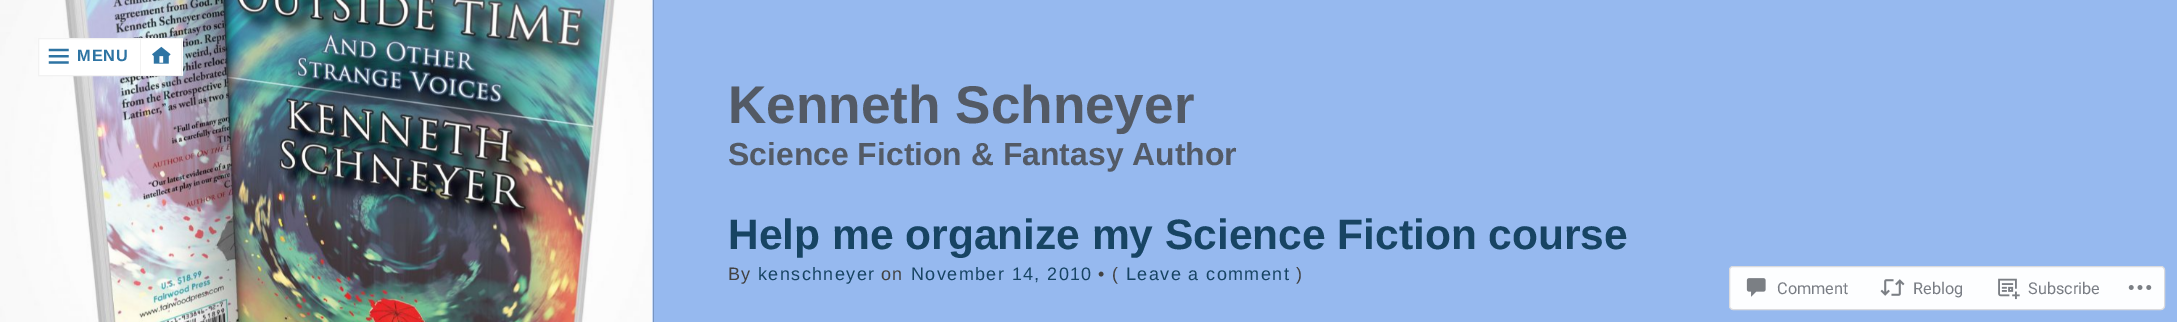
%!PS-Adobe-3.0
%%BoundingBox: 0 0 2177 322
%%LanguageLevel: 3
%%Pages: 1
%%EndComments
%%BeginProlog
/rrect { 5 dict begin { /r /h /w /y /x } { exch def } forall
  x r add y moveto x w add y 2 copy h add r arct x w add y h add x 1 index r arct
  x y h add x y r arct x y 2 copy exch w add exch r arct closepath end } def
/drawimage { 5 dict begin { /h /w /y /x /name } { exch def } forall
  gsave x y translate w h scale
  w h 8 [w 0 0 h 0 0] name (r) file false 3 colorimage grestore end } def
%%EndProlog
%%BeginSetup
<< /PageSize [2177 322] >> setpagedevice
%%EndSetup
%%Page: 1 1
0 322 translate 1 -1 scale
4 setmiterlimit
0.588 0.725 0.937 setrgbcolor
0 0 2177 322 rectfill
0.471 0.58 0.749 setrgbcolor
653 0 1 322 rectfill
(images/1.raw) 0 0 653 322 drawimage
1 setgray
newpath 38.5 38.5 moveto 140.5 38.5 lineto 140.5 75.5 lineto 38.5 75.5 lineto closepath gsave fill grestore
0.949 setgray
stroke
(images/2.raw) 48 48 21 16 drawimage
1 setgray
141 39 42 36 rectfill
0.949 setgray
141 38 42 1 rectfill
181 38 1 38 rectfill
141 75 42 1 rectfill
(images/3.raw) 152 46 19 18 drawimage
0.992 0.996 1 setrgbcolor
1729.5 266.5 435 43 3.5 rrect gsave fill grestore
0.859 0.859 0.871 setrgbcolor
stroke
(images/4.raw) 1746 278 20 19 drawimage
(images/5.raw) 1880 279 25 17 drawimage
(images/6.raw) 1998 278 22 22 drawimage
(images/7.raw) 2128 285 24 5 drawimage
/Arimo-Bold [16.25 0 0 -16.25 0 0] selectfont
0.18 0.455 0.639 setrgbcolor
77 61 moveto 1 0 (MENU) ashow
/Arimo-Bold [53.1 0 0 -53.1 0 0] selectfont
0.325 0.353 0.396 setrgbcolor
728 123 moveto (Kenneth Schneyer) show
/Arimo-Bold [31.9 0 0 -31.9 0 0] selectfont
728 165 moveto (Science Fiction & Fantasy Author) show
/Arimo-Bold [42.5 0 0 -42.5 0 0] selectfont
0.09 0.267 0.388 setrgbcolor
728 249 moveto (Help me organize my Science Fiction course) show
/Arimo-Regular [18 0 0 -18 0 0] selectfont
0.259 setgray
728 280 moveto 1.4 0 (By) ashow
0.09 0.267 0.388 setrgbcolor
758 280 moveto 1.4 0 (kenschneyer) ashow
0.259 setgray
881 280 moveto 1.4 0 (on) ashow
0.09 0.267 0.388 setrgbcolor
911 280 moveto 1.4 0 (November 14, 2010) ashow
0.259 setgray
1098 280 moveto 1.4 0 (• \() ashow
0.09 0.267 0.388 setrgbcolor
1126 280 moveto 1.4 0 (Leave a comment) ashow
0.259 setgray
1296 280 moveto 1.4 0 (\)) ashow
/Roboto-Regular [16.25 0 0 -16.25 0 0] selectfont
0.475 0.49 0.518 setrgbcolor
1777 294 moveto (Comment) show
1913 294 moveto (Reblog) show
2028 294 moveto (Subscribe) show
showpage
%%EOF
